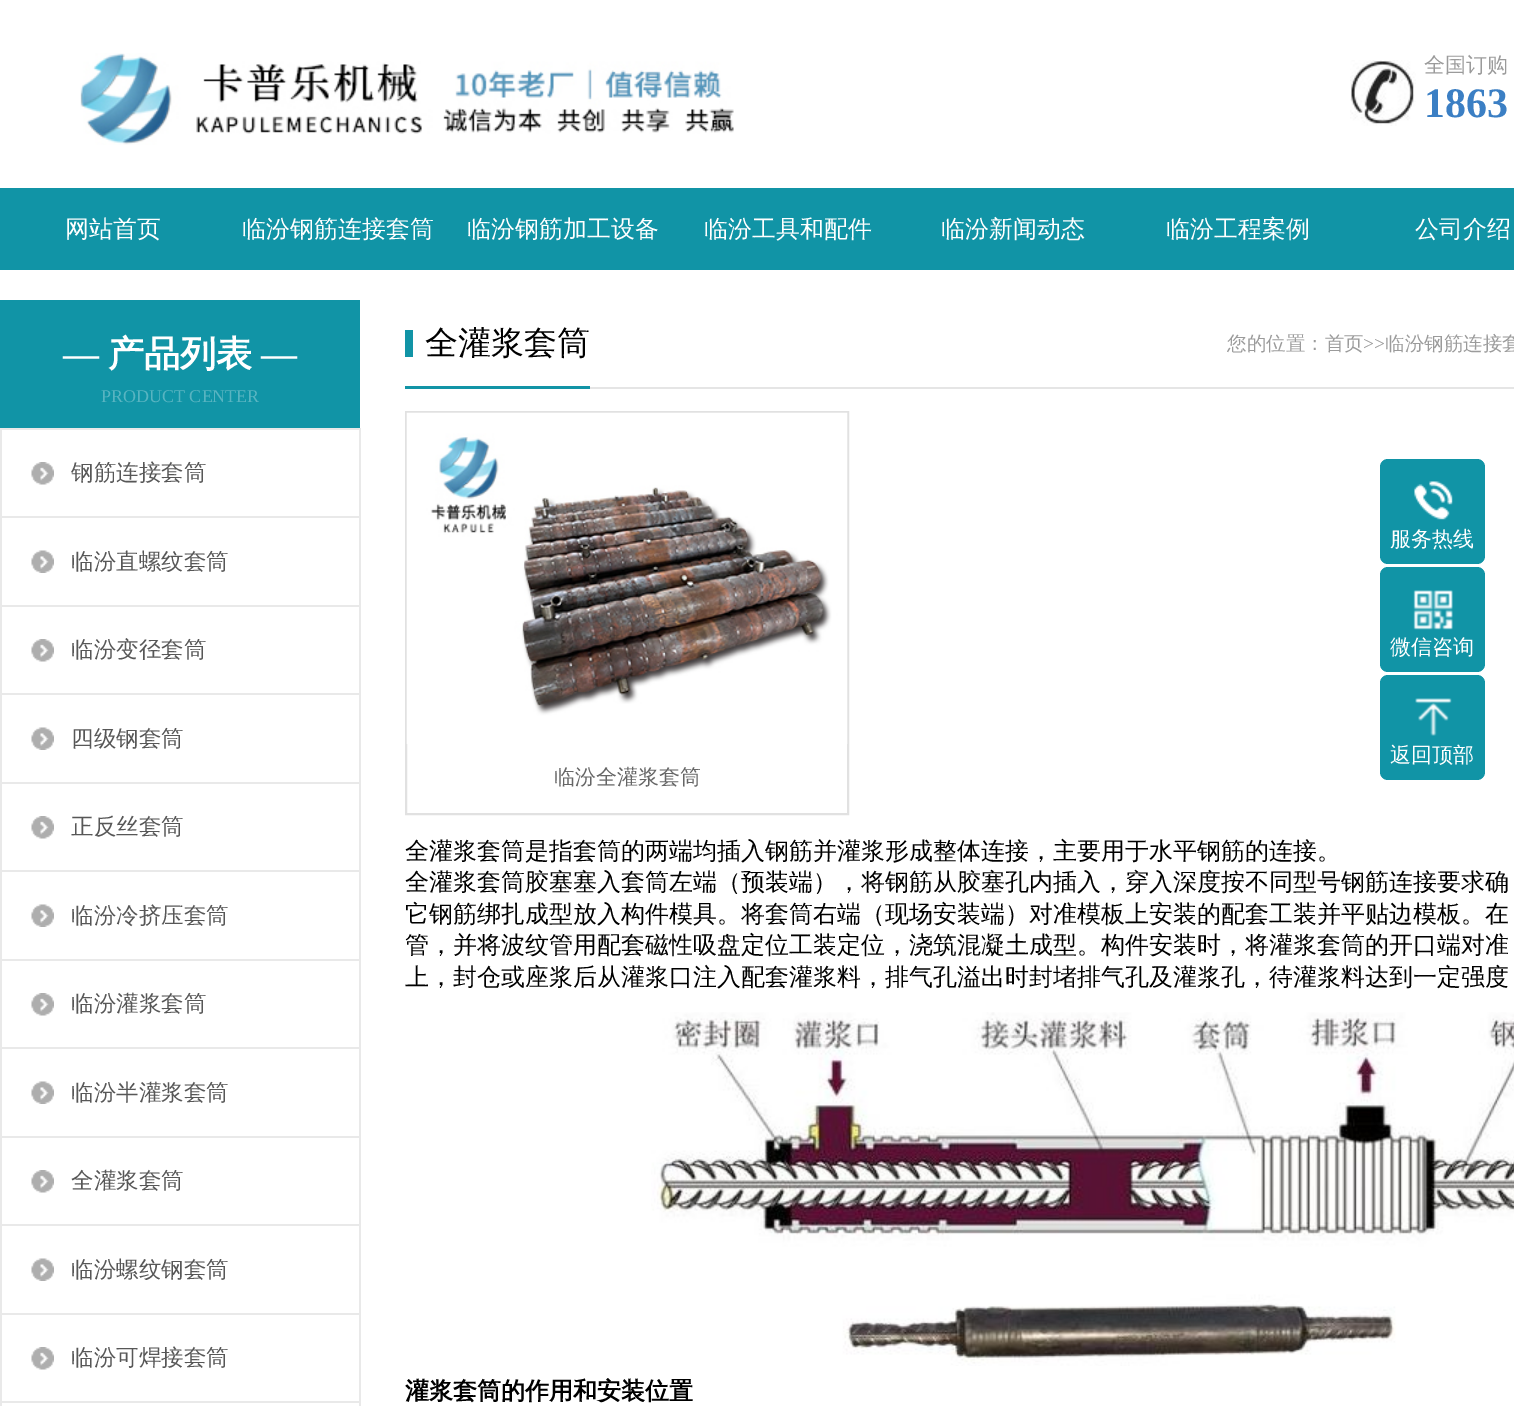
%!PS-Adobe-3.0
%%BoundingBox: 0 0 1514 1406
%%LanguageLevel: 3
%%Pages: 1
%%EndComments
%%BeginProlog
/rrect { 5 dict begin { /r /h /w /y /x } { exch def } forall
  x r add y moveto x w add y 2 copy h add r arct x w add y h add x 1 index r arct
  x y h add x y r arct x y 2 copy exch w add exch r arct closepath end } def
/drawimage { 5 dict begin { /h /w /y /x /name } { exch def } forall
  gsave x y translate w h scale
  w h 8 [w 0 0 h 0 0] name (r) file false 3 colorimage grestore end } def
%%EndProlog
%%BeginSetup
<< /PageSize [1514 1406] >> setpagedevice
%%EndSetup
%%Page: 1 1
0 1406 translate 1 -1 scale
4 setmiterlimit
1 setgray
0 0 1514 1406 rectfill
(images/1.raw) 80 53 654 92 drawimage
(images/2.raw) 1350 60 66 66 drawimage
0.067 0.58 0.651 setrgbcolor
0 188 1514 82 rectfill
0 300 360 128 rectfill
0.914 setgray
359 428 2 978 rectfill
0 428 2 978 rectfill
(images/3.raw) 31 462 23 23 drawimage
2 428 357 2 rectfill
(images/4.raw) 31 550 23 23 drawimage
2 516 357 2 rectfill
(images/3.raw) 31 639 23 23 drawimage
2 605 357 2 rectfill
(images/4.raw) 31 727 23 23 drawimage
2 693 357 2 rectfill
(images/3.raw) 31 816 23 23 drawimage
2 782 357 2 rectfill
(images/4.raw) 31 904 23 23 drawimage
2 870 357 2 rectfill
(images/3.raw) 31 993 23 23 drawimage
2 959 357 2 rectfill
(images/4.raw) 31 1081 23 23 drawimage
2 1047 357 2 rectfill
(images/3.raw) 31 1170 23 23 drawimage
2 1136 357 2 rectfill
(images/4.raw) 31 1258 23 23 drawimage
2 1224 357 2 rectfill
(images/3.raw) 31 1347 23 23 drawimage
2 1313 357 2 rectfill
2 1401 357 2 rectfill
0.898 setgray
590 387 924 2 rectfill
0.067 0.58 0.651 setrgbcolor
405 386 185 3 rectfill
405 330 8 27 rectfill
0.882 setgray
2 setlinewidth
406 412 442 402 rectstroke
(images/5.raw) 406 412 442 332 drawimage
(images/6.raw) 651 1012 863 354 drawimage
0.067 0.58 0.651 setrgbcolor
1380 459 105 105 8 rrect fill
(images/7.raw) 1414 481 39 39 drawimage
1380 567 105 105 8 rrect fill
(images/8.raw) 1413 590 40 40 drawimage
1380 675 105 105 8 rrect fill
(images/9.raw) 1415 698 37 38 drawimage
/WenQuanYiZenHei-Medium [21 0 0 -21 0 0] selectfont
0.608 setgray
1424 72 moveto (全国订购) show
/LiberationSerif-Bold [42 0 0 -42 0 0] selectfont
0.231 0.498 0.769 setrgbcolor
1424 117 moveto (1863) show
/WenQuanYiZenHei-Medium [24 0 0 -24 0 0] selectfont
1 setgray
65 237 moveto (网站首页) show
242 237 moveto (临汾钢筋连接套筒) show
467 237 moveto (临汾钢筋加工设备) show
704 237 moveto (临汾工具和配件) show
941 237 moveto (临汾新闻动态) show
1166 237 moveto (临汾工程案例) show
1415 237 moveto (公司介绍) show
/LiberationSerif-Bold [36 0 0 -36 0 0] selectfont
63 366 moveto (—) show
/WenQuanYiZenHei-Bold [36 0 0 -36 0 0] selectfont
108 366 moveto (产品列表) show
/LiberationSerif-Bold [36 0 0 -36 0 0] selectfont
261 366 moveto (—) show
/LiberationSerif-Regular [18 0 0 -18 0 0] selectfont
0.345 0.706 0.757 setrgbcolor
101 402 moveto (PRODUCT CENTER) show
/WenQuanYiZenHei-Medium [22.5 0 0 -22.5 0 0] selectfont
0.341 setgray
71 480 moveto (钢筋连接套筒) show
71 569 moveto (临汾直螺纹套筒) show
71 657 moveto (临汾变径套筒) show
71 746 moveto (四级钢套筒) show
71 834 moveto (正反丝套筒) show
71 923 moveto (临汾冷挤压套筒) show
71 1011 moveto (临汾灌浆套筒) show
71 1100 moveto (临汾半灌浆套筒) show
71 1188 moveto (全灌浆套筒) show
71 1277 moveto (临汾螺纹钢套筒) show
71 1365 moveto (临汾可焊接套筒) show
/WenQuanYiZenHei-Medium [33 0 0 -33 0 0] selectfont
0 setgray
425 354 moveto (全灌浆套筒) show
/WenQuanYiZenHei-Medium [19.5 0 0 -19.5 0 0] selectfont
0.608 setgray
1227 350 moveto (您的位置：首页) show
/LiberationSerif-Regular [19.5 0 0 -19.5 0 0] selectfont
1363 350 moveto (>>) show
/WenQuanYiZenHei-Medium [19.5 0 0 -19.5 0 0] selectfont
1385 350 moveto (临汾钢筋连接套) show
/WenQuanYiZenHei-Medium [21 0 0 -21 0 0] selectfont
0.4 setgray
554 784 moveto (临汾全灌浆套筒) show
/WenQuanYiZenHei-Medium [24 0 0 -24 0 0] selectfont
0 setgray
405 859 moveto (全灌浆套筒是指套筒的两端均插入钢筋并灌浆形成整体连接，主要用于水平钢筋的连接。) show
405 890 moveto (全灌浆套筒胶塞塞入套筒左端（预装端），将钢筋从胶塞孔内插入，穿入深度按不同型号钢筋连接要求确) show
405 922 moveto (它钢筋绑扎成型放入构件模具。将套筒右端（现场安装端）对准模板上安装的配套工装并平贴边模板。在) show
405 953 moveto (管，并将波纹管用配套磁性吸盘定位工装定位，浇筑混凝土成型。构件安装时，将灌浆套筒的开口端对准) show
405 985 moveto (上，封仓或座浆后从灌浆口注入配套灌浆料，排气孔溢出时封堵排气孔及灌浆孔，待灌浆料达到一定强度) show
/WenQuanYiZenHei-Bold [24 0 0 -24 0 0] selectfont
405 1399 moveto (灌浆套筒的作用和安装位置) show
/WenQuanYiZenHei-Medium [21 0 0 -21 0 0] selectfont
1 setgray
1390 546 moveto (服务热线) show
1390 654 moveto (微信咨询) show
1390 762 moveto (返回顶部) show
showpage
%%EOF
